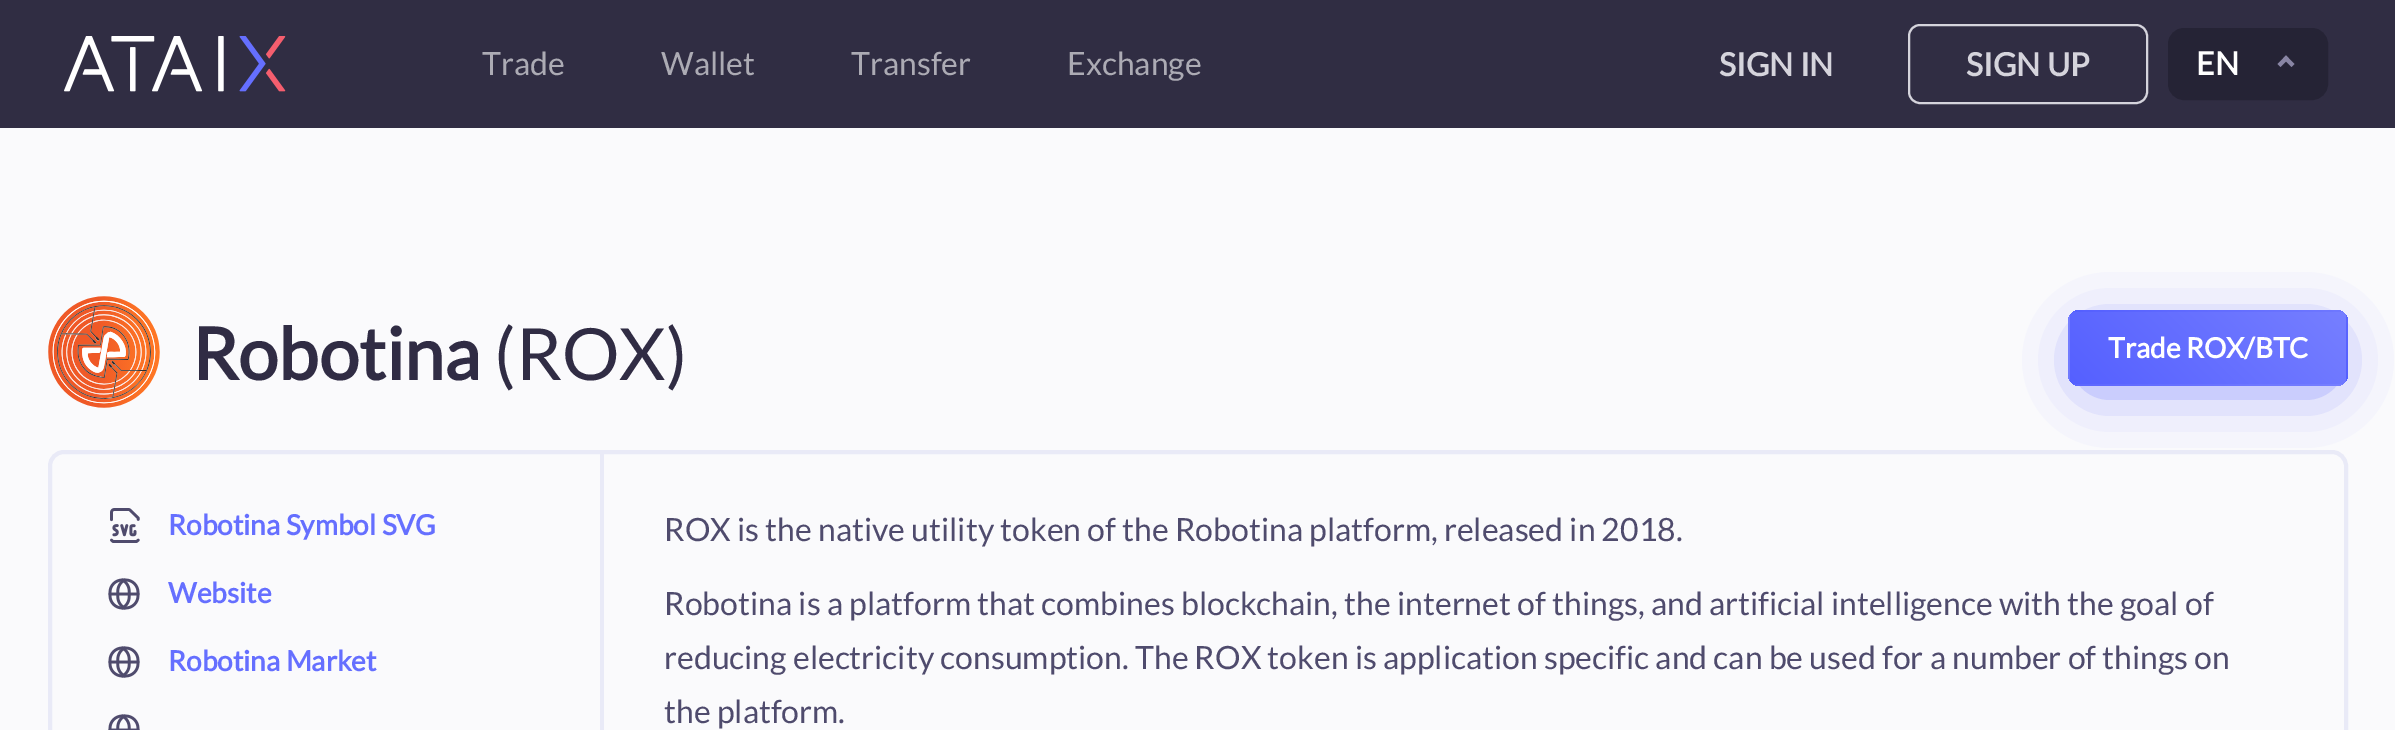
%!PS-Adobe-3.0
%%BoundingBox: 0 0 2395 730
%%LanguageLevel: 3
%%Pages: 1
%%EndComments
%%BeginProlog
/setalpha { dup .setfillconstantalpha .setstrokeconstantalpha } def
/rrect { 5 dict begin { /r /h /w /y /x } { exch def } forall
  x r add y moveto x w add y 2 copy h add r arct x w add y h add x 1 index r arct
  x y h add x y r arct x y 2 copy exch w add exch r arct closepath end } def
/softshadow { 12 dict begin { /a /b /q /h /w /y /x } { exch def } forall gsave /was 0 def
  9 -2 -9 { dup b mul 4 div /e exch def 1 sub .425 mul 2.718 exch exp 1 add a .99 .min exch div /now exch def
    1 1 now sub 1 was sub div sub setalpha /was now def
    w h .min e 2 mul add 0 gt { x e sub y e sub w e 2 mul add h e 2 mul add
      q e add b .6 mul add w h .min 2 div e add .min 0 .max rrect fill } if } for grestore end } def
/drawimage { 5 dict begin { /h /w /y /x /name } { exch def } forall
  gsave x y translate w h scale
  w h 8 [w 0 0 h 0 0] name (r) file false 3 colorimage grestore end } def
%%EndProlog
%%BeginSetup
<< /PageSize [2395 730] /PageUsesTransparency true >> setpagedevice
%%EndSetup
%%Page: 1 1
0 .pushpdf14devicefilter
0 730 translate 1 -1 scale
4 setmiterlimit
0.98 0.98 0.988 setrgbcolor
0 0 2395 730 rectfill
0.188 0.176 0.263 setrgbcolor
0 0 2395 128 rectfill
(images/1.raw) 64 36 222 56 drawimage
0.835 0.831 0.863 setrgbcolor
2 setlinewidth
1909 25 238 78 11 rrect stroke
0.145 0.137 0.208 setrgbcolor
2170 30 156 68 14 rrect gsave fill grestore
4 setlinewidth
stroke
0.537 0.522 0.643 setrgbcolor
newpath 2286 55.5 moveto 2294.5 64 lineto 2291.5 67 lineto 2283 58.5 lineto closepath fill
newpath 2286 55.5 moveto 2289 58.5 lineto 2280.5 67 lineto 2277.5 64 lineto closepath fill
(images/2.raw) 48 296 112 112 drawimage
0.914 0.918 0.969 setrgbcolor
50 452 2296 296 14 rrect stroke
0.333 0.376 1 setrgbcolor
2094 344 228 32 16 32 1 softshadow
gsave
2068 310 280 76 12 rrect clip newpath
gsave newpath 2070 310 moveto 2346 310 lineto 2346 312 lineto 2070 312 lineto closepath clip newpath
<< /ShadingType 2 /ColorSpace /DeviceRGB /Coords [2295 189 2121 363] /Extend [true true] /Function << /FunctionType 2 /Domain [0 1] /C0 [0.463 0.498 1] /C1 [0.333 0.376 1] /N 1 >> >> shfill grestore
gsave newpath 2068 312 moveto 2070 312 lineto 2070 384 lineto 2068 384 lineto closepath clip newpath
<< /ShadingType 2 /ColorSpace /DeviceRGB /Coords [2019 261 1845 435] /Extend [true true] /Function << /FunctionType 2 /Domain [0 1] /C0 [0.463 0.498 1] /C1 [0.333 0.376 1] /N 1 >> >> shfill grestore
gsave newpath 2070 312 moveto 2346 312 lineto 2346 384 lineto 2070 384 lineto closepath clip newpath
<< /ShadingType 2 /ColorSpace /DeviceRGB /Coords [2295 261 2121 435] /Extend [true true] /Function << /FunctionType 2 /Domain [0 1] /C0 [0.463 0.498 1] /C1 [0.333 0.376 1] /N 1 >> >> shfill grestore
gsave newpath 2346 312 moveto 2348 312 lineto 2348 384 lineto 2346 384 lineto closepath clip newpath
<< /ShadingType 2 /ColorSpace /DeviceRGB /Coords [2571 261 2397 435] /Extend [true true] /Function << /FunctionType 2 /Domain [0 1] /C0 [0.463 0.498 1] /C1 [0.333 0.376 1] /N 1 >> >> shfill grestore
gsave newpath 2070 384 moveto 2346 384 lineto 2346 386 lineto 2070 386 lineto closepath clip newpath
<< /ShadingType 2 /ColorSpace /DeviceRGB /Coords [2295 333 2121 507] /Extend [true true] /Function << /FunctionType 2 /Domain [0 1] /C0 [0.463 0.498 1] /C1 [0.333 0.376 1] /N 1 >> >> shfill grestore
grestore
0.914 0.918 0.969 setrgbcolor
600 454 4 276 rectfill
(images/3.raw) 110 508 30 35 drawimage
(images/4.raw) 108 578 32 32 drawimage
(images/4.raw) 108 646 32 32 drawimage
(images/5.raw) 108 714 32 16 drawimage
/Lato-Regular [32 0 0 -32 0 0] selectfont
0.675 0.671 0.706 setrgbcolor
482 75 moveto (Trade) show
661 75 moveto (Wallet) show
851 75 moveto (Transfer) show
1067 75 moveto (Exchange) show
/Lato-Bold [32 0 0 -32 0 0] selectfont
0.835 0.831 0.863 setrgbcolor
1719 76 moveto (SIGN IN) show
1966 76 moveto (SIGN UP) show
1 setgray
2196 75 moveto (EN) show
/Lato-Bold [72 0 0 -72 0 0] selectfont
0.188 0.173 0.267 setrgbcolor
192 380 moveto (Robotina) show
/Lato-Regular [72 0 0 -72 0 0] selectfont
494 380 moveto (\(ROX\)) show
/Lato-Bold [28 0 0 -28 0 0] selectfont
1 setgray
2108 358 moveto (Trade ROX/BTC) show
0.396 0.435 1 setrgbcolor
168 535 moveto (Robotina Symbol SVG) show
168 603 moveto (Website) show
168 671 moveto (Robotina Market) show
/Lato-Regular [32 0 0 -32 0 0] selectfont
0.31 0.294 0.427 setrgbcolor
664 541 moveto (ROX is the native utility token of the Robotina platform, released in 2018.) show
664 615 moveto (Robotina is a platform that combines blockchain, the internet of things, and artificial intelligence with the goal of) show
664 669 moveto (reducing electricity consumption. The ROX token is application specific and can be used for a number of things on) show
664 723 moveto (the platform.) show
.poppdf14devicefilter showpage
%%EOF
